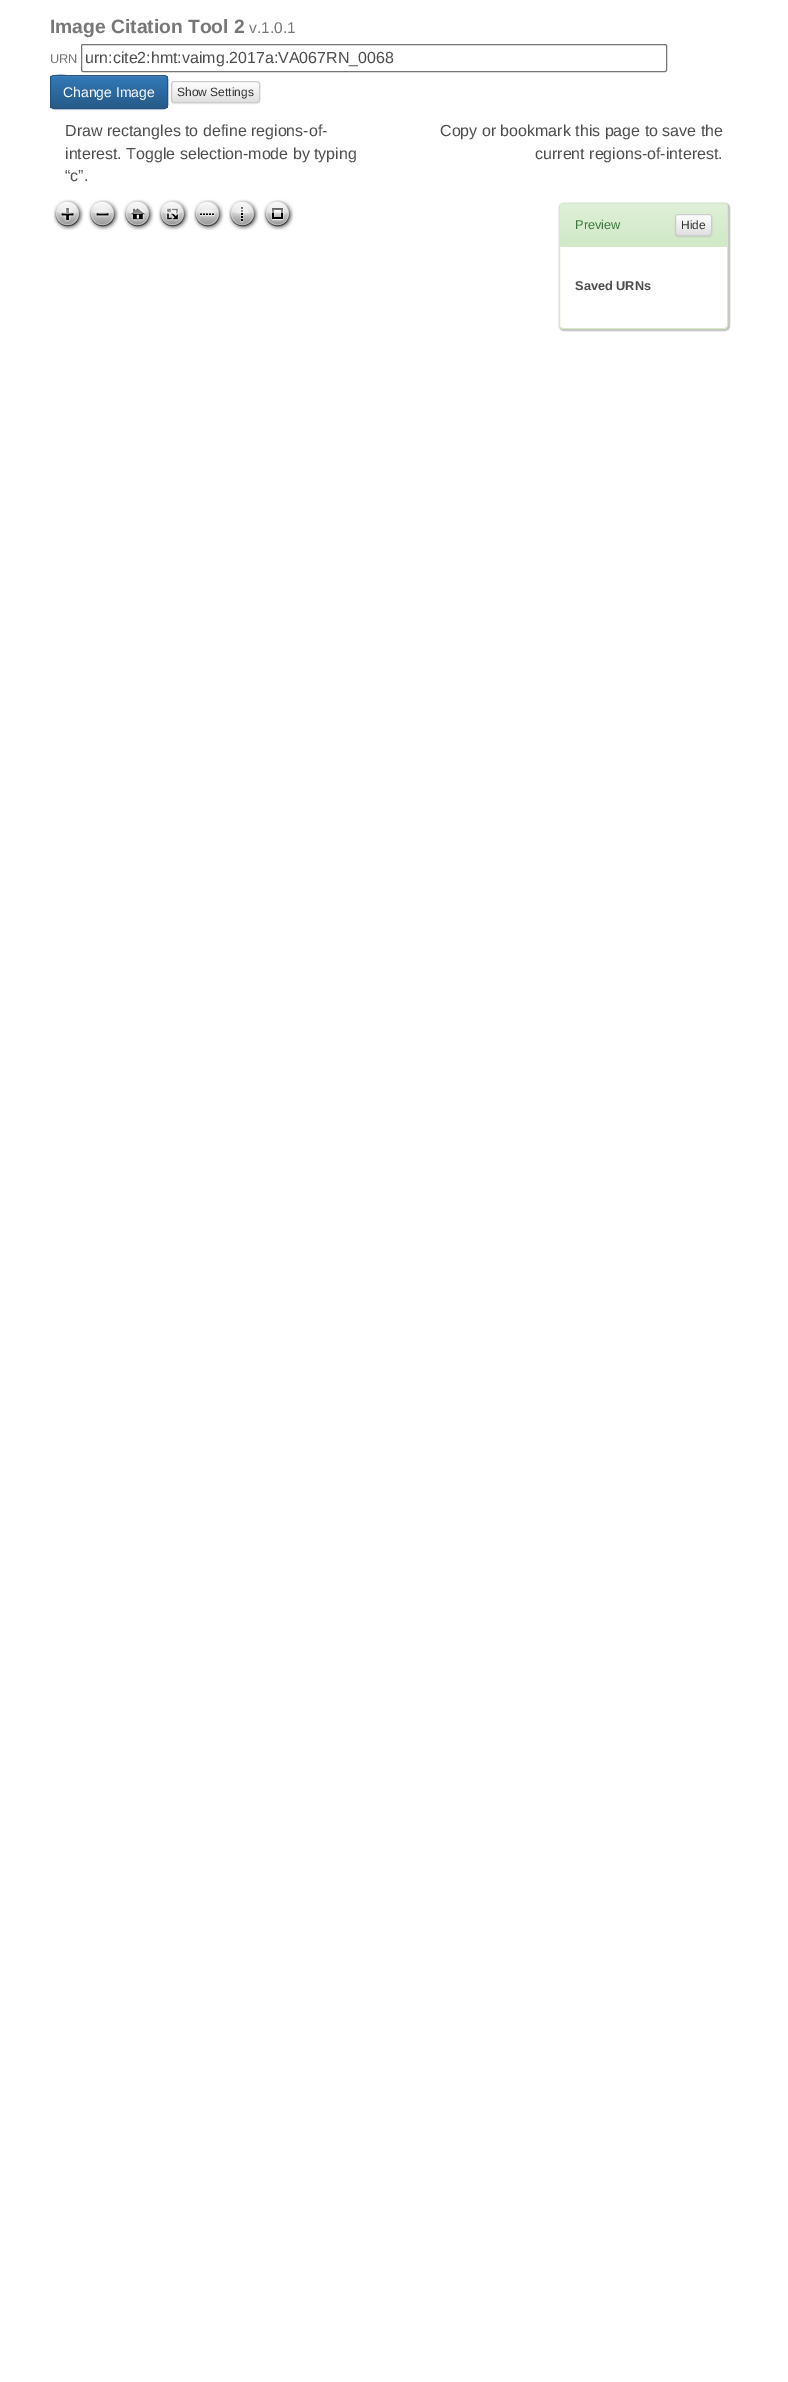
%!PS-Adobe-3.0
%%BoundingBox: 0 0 788 2382
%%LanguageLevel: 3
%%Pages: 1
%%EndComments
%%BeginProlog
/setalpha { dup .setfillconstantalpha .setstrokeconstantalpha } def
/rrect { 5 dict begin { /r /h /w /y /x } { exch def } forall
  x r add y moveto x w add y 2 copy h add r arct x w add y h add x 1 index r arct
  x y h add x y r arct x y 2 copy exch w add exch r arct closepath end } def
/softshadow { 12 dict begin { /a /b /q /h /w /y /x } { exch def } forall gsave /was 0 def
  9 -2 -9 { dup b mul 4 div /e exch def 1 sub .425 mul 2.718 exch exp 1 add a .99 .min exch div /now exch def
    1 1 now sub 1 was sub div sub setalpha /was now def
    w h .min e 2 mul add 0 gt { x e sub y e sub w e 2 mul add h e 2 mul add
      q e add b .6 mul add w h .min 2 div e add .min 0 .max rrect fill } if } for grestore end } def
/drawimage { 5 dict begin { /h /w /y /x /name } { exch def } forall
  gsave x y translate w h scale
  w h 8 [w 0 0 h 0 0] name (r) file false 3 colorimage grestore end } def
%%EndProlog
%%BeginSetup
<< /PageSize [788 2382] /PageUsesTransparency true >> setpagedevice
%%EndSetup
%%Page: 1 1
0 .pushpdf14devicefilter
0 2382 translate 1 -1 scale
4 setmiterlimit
1 setgray
0 0 788 2382 rectfill
0.463 setgray
81.5 44.5 585 27 1.5 rrect stroke
0 setgray
50 76 118 34 4 0.5 0.07 softshadow
gsave
50 75 118 34 4 rrect clip newpath
gsave newpath 50 76 moveto 168 76 lineto 168 108 lineto 50 108 lineto closepath clip newpath
<< /ShadingType 2 /ColorSpace /DeviceRGB /Coords [109 76 109 108] /Extend [true true] /Function << /FunctionType 2 /Domain [0 1] /C0 [0.2 0.478 0.718] /C1 [0.149 0.353 0.533] /N 1 >> >> shfill grestore
grestore
0.322 0.557 0.757 setrgbcolor
newpath 54 77 moveto 164 77 lineto 166 77 167 78 167 80 curveto 167 78 166 76 164 76 curveto 72 76 lineto 71 76 51 71 51 80 curveto 51 78 52 77 54 77 curveto closepath fill
0.141 0.333 0.502 setrgbcolor
50.5 75.5 117 33 3.5 rrect stroke
0 setgray
171 82 89 22 3 0.5 0.07 softshadow
gsave
171 81 89 22 3 rrect clip newpath
gsave newpath 171 82 moveto 260 82 lineto 260 102 lineto 171 102 lineto closepath clip newpath
<< /ShadingType 2 /ColorSpace /DeviceRGB /Coords [216 82 216 102] /Extend [true true] /Function << /FunctionType 2 /Domain [0 1] /C0 [1 1 1] /C1 [0.878 0.878 0.878] /N 1 >> >> shfill grestore
grestore
0.8 setgray
171.5 81.5 88 21 2.5 rrect stroke
(images/1.raw) 53 199 31 31 drawimage
(images/2.raw) 54 200 29 30 drawimage
(images/3.raw) 88 199 31 31 drawimage
(images/4.raw) 89 200 29 30 drawimage
(images/5.raw) 123 199 31 31 drawimage
(images/6.raw) 124 200 29 30 drawimage
(images/7.raw) 158 199 31 31 drawimage
(images/8.raw) 159 200 29 30 drawimage
(images/9.raw) 193 199 31 31 drawimage
(images/10.raw) 194 200 29 30 drawimage
(images/11.raw) 228 199 31 31 drawimage
(images/12.raw) 229 200 29 30 drawimage
(images/13.raw) 263 199 31 31 drawimage
(images/14.raw) 264 200 29 30 drawimage
0.49 setgray
559 203 171 128 5 0.5 0.5 softshadow
1 setgray
559.5 203.5 168 125 3.5 rrect gsave fill grestore
0.839 0.914 0.776 setrgbcolor
stroke
gsave newpath 563 204 moveto 724 204 lineto 725.5 204 727 205.5 727 207 curveto 727 246 lineto 560 246 lineto 560 207 lineto 560 205.5 561.5 204 563 204 curveto closepath clip newpath
<< /ShadingType 2 /ColorSpace /DeviceRGB /Coords [644 204 644 246] /Extend [true true] /Function << /FunctionType 2 /Domain [0 1] /C0 [0.875 0.941 0.847] /C1 [0.816 0.914 0.776] /N 1 >> >> shfill grestore
560 246 167 1 rectfill
0 setgray
675 215 37 22 3 0.5 0.07 softshadow
gsave
675 214 37 22 3 rrect clip newpath
gsave newpath 675 215 moveto 712 215 lineto 712 235 lineto 675 235 lineto closepath clip newpath
<< /ShadingType 2 /ColorSpace /DeviceRGB /Coords [694 215 694 235] /Extend [true true] /Function << /FunctionType 2 /Domain [0 1] /C0 [1 1 1] /C1 [0.878 0.878 0.878] /N 1 >> >> shfill grestore
grestore
0.8 setgray
675.5 214.5 36 21 2.5 rrect stroke
/LiberationSans-Bold [19.25 0 0 -19.25 0 0] selectfont
0.467 setgray
50 33 moveto (Image Citation Tool 2) show
/LiberationSans-Regular [15.5 0 0 -15.5 0 0] selectfont
249 33 moveto (v.1.0.1) show
/LiberationSans-Regular [12.75 0 0 -12.75 0 0] selectfont
50 63 moveto (URN) show
/LiberationSans-Regular [16 0 0 -16 0 0] selectfont
0.302 setgray
85 63 moveto (urn:cite2:hmt:vaimg.2017a:VA067RN_0068) show
/LiberationSans-Regular [14 0 0 -14 0 0] selectfont
1 setgray
63 97 moveto (Change Image) show
/LiberationSans-Regular [12 0 0 -12 0 0] selectfont
0.2 setgray
177 96 moveto (Show Settings) show
/LiberationSans-Regular [16 0 0 -16 0 0] selectfont
0.302 setgray
65 136 moveto (Draw rectangles to define regions-of-) show
65 159 moveto (interest. Toggle selection-mode by typing) show
65 181 moveto (“c”.) show
440 136 moveto (Copy or bookmark this page to save the) show
535 159 moveto (current regions-of-interest.) show
/LiberationSans-Regular [12.75 0 0 -12.75 0 0] selectfont
0.235 0.463 0.239 setrgbcolor
575 229 moveto (Preview) show
/LiberationSans-Regular [12 0 0 -12 0 0] selectfont
0.2 setgray
681 229 moveto (Hide) show
/LiberationSans-Bold [12.75 0 0 -12.75 0 0] selectfont
0.302 setgray
575 290 moveto (Saved URNs) show
.poppdf14devicefilter showpage
%%EOF
